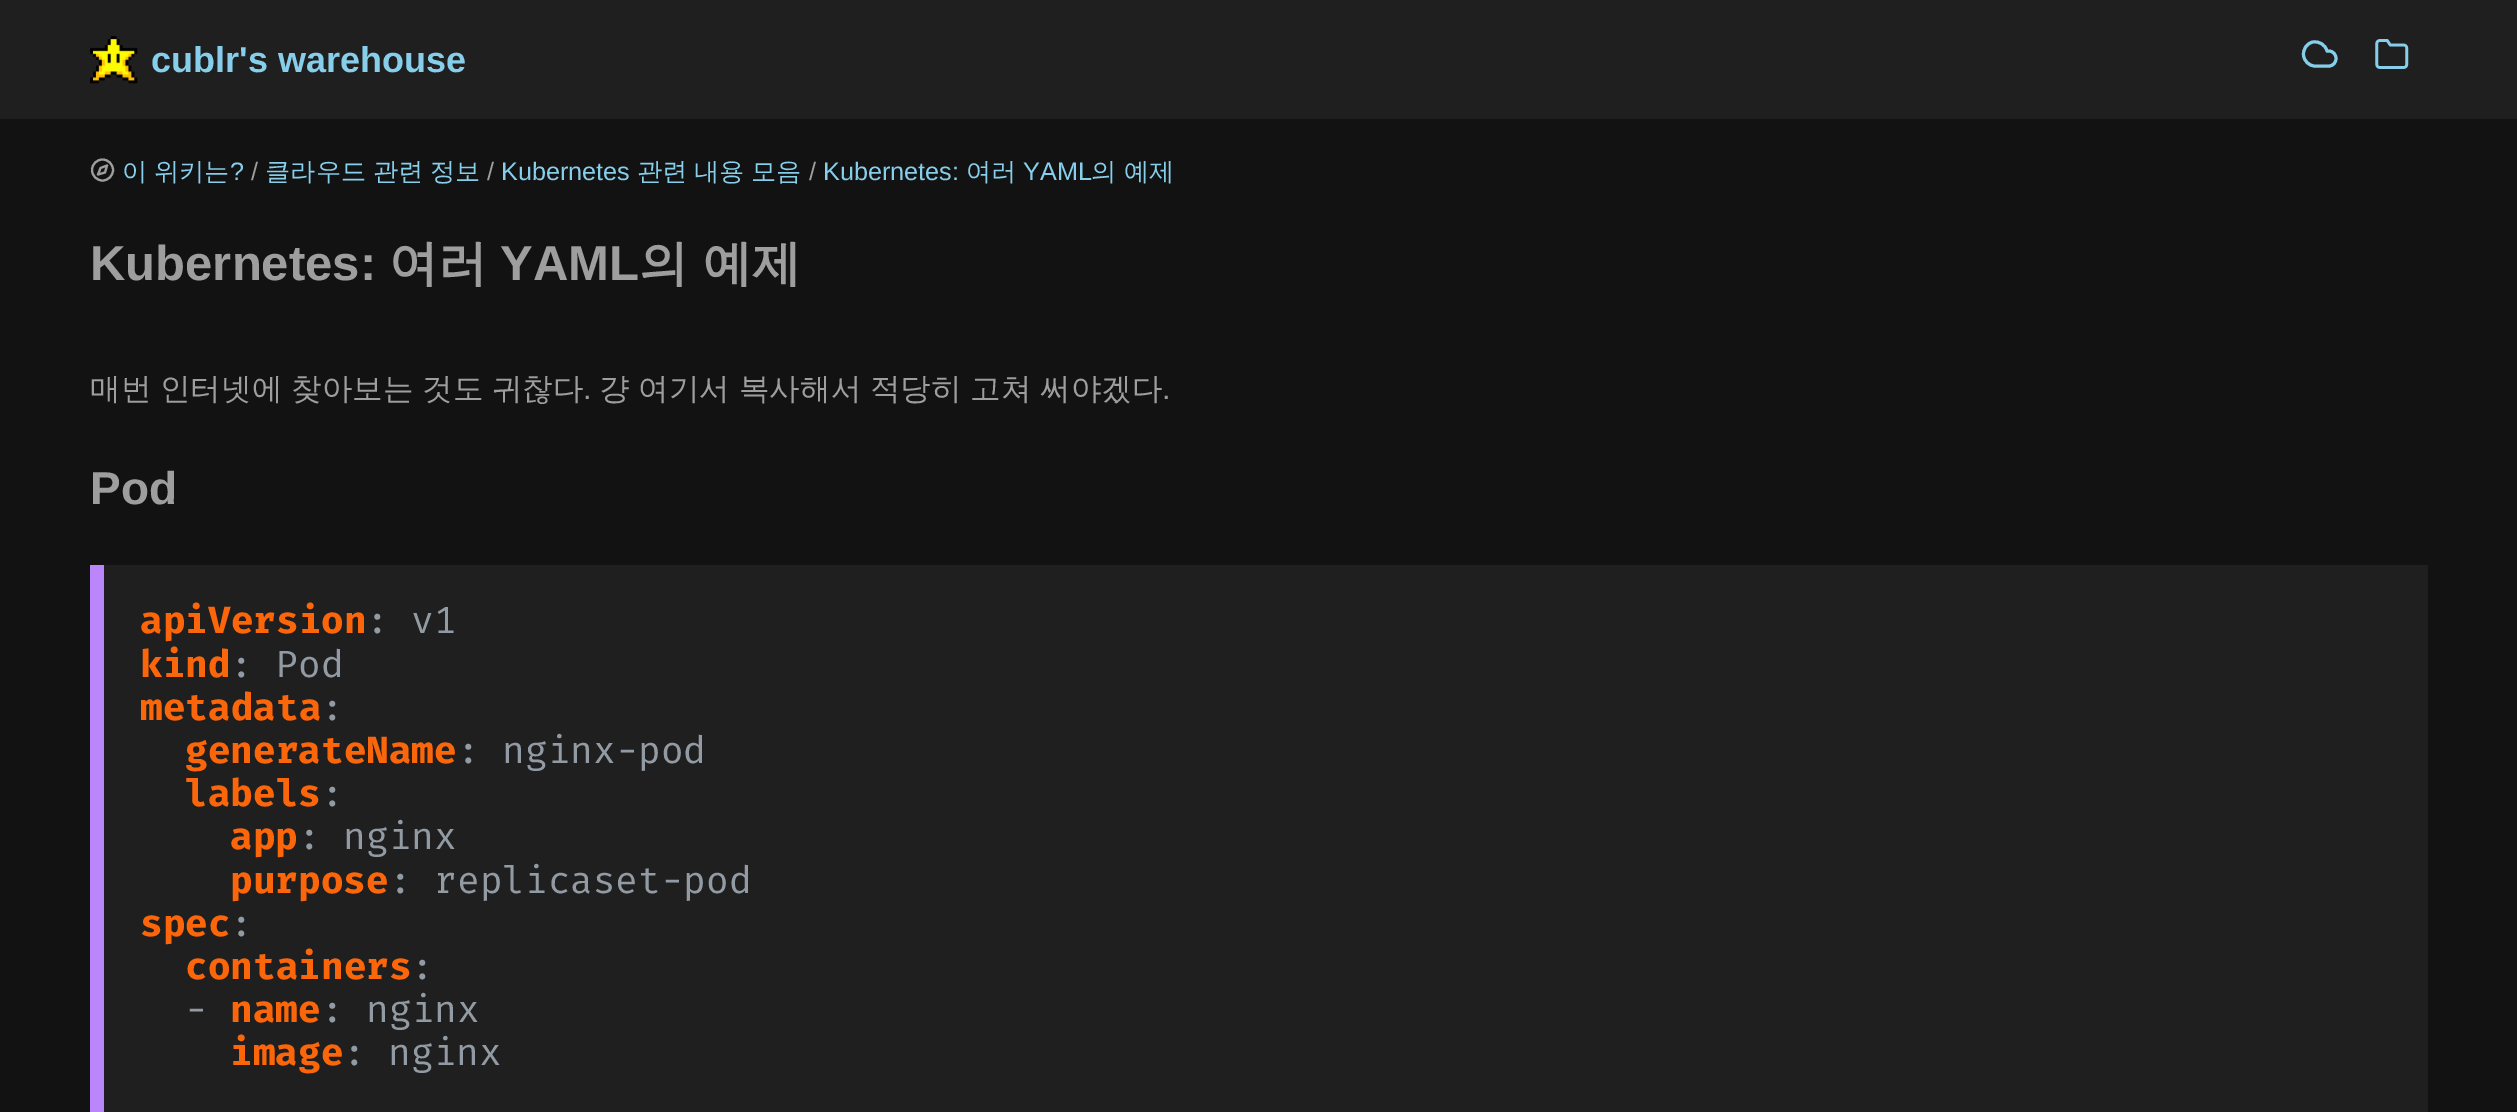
%!PS-Adobe-3.0
%%BoundingBox: 0 0 2517 1112
%%LanguageLevel: 3
%%Pages: 1
%%EndComments
%%BeginProlog
/drawimage { 5 dict begin { /h /w /y /x /name } { exch def } forall
  gsave x y translate w h scale
  w h 8 [w 0 0 h 0 0] name (r) file false 3 colorimage grestore end } def
%%EndProlog
%%BeginSetup
<< /PageSize [2517 1112] >> setpagedevice
%%EndSetup
%%Page: 1 1
0 1112 translate 1 -1 scale
4 setmiterlimit
0.071 setgray
0 0 2517 1112 rectfill
0.122 setgray
0 0 2517 119 rectfill
(images/1.raw) 90 36 48 48 drawimage
0.529 0.808 0.922 setrgbcolor
3 setlinewidth
1 setlinecap
1 setlinejoin
newpath 2329 51 moveto 2327 51 lineto 2325.5 45 2319.5 41 2313 42 curveto 2307 43 2303 49 2303.5 55 curveto 2304 61 2309 66 2315 66 curveto 2329 66 lineto 2333 66 2336 62.5 2336 58.5 curveto 2336 54.5 2333 51 2329 51 curveto closepath stroke
(images/2.raw) 2375 39 34 30 drawimage
0.62 setgray
2.1 setlinewidth
0 setlinecap
0 setlinejoin
newpath 102.5 170 10.5 0 360 arc closepath stroke
1 setlinecap
1 setlinejoin
newpath 107 165.5 moveto 105 172.5 lineto 98 174.5 lineto 100.5 168 lineto closepath stroke
0.122 setgray
104 565 2324 547 rectfill
0.733 0.525 0.988 setrgbcolor
90 565 14 547 rectfill
/LiberationSans-Bold [36 0 0 -36 0 0] selectfont
0.529 0.808 0.922 setrgbcolor
151 72 moveto (cublr's warehouse) show
/WenQuanYiZenHei-Medium [25.25 0 0 -25.25 0 0] selectfont
122 180 moveto -1 0 32 (이 위키는) widthshow
/LiberationSans-Regular [25.25 0 0 -25.25 0 0] selectfont
230 180 moveto (?) show
0.62 setgray
251 180 moveto (/) show
/WenQuanYiZenHei-Medium [25.25 0 0 -25.25 0 0] selectfont
0.529 0.808 0.922 setrgbcolor
265 180 moveto -1 0 32 (클라우드 관련 정보) widthshow
/LiberationSans-Regular [25.25 0 0 -25.25 0 0] selectfont
0.62 setgray
487 180 moveto (/) show
0.529 0.808 0.922 setrgbcolor
501 180 moveto (Kubernetes) show
/WenQuanYiZenHei-Medium [25.25 0 0 -25.25 0 0] selectfont
637 180 moveto -1 0 32 (관련 내용 모음) widthshow
/LiberationSans-Regular [25.25 0 0 -25.25 0 0] selectfont
0.62 setgray
809 180 moveto (/) show
0.529 0.808 0.922 setrgbcolor
823 180 moveto (Kubernetes:) show
/WenQuanYiZenHei-Medium [25.25 0 0 -25.25 0 0] selectfont
966 180 moveto (여러) show
/LiberationSans-Regular [25.25 0 0 -25.25 0 0] selectfont
1023 180 moveto (YAML) show
/WenQuanYiZenHei-Medium [25.25 0 0 -25.25 0 0] selectfont
1091 180 moveto (의 예제) show
/LiberationSans-Bold [49 0 0 -49 0 0] selectfont
0.62 setgray
90 280 moveto (Kubernetes:) show
/WenQuanYiZenHei-Bold [49 0 0 -49 0 0] selectfont
389 280 moveto (여러) show
/LiberationSans-Bold [49 0 0 -49 0 0] selectfont
500 280 moveto (YAML) show
/WenQuanYiZenHei-Bold [49 0 0 -49 0 0] selectfont
639 280 moveto (의 예제) show
/WenQuanYiZenHei-Medium [30.6 0 0 -30.6 0 0] selectfont
90 399 moveto -0.5 0 32 (매번 인터넷에 찾아보는 것도 귀찮다) widthshow
/LiberationSans-Regular [30.6 0 0 -30.6 0 0] selectfont
583 399 moveto (.) show
/WenQuanYiZenHei-Medium [30.6 0 0 -30.6 0 0] selectfont
599 399 moveto -0.5 0 32 (걍 여기서 복사해서 적당히 고쳐 써야겠다) widthshow
/LiberationSans-Regular [30.6 0 0 -30.6 0 0] selectfont
1162 399 moveto (.) show
/LiberationSans-Bold [46 0 0 -46 0 0] selectfont
90 504 moveto (Pod) show
/FiraMono-Bold [37.75 0 0 -37.75 0 0] selectfont
0.984 0.4 0.039 setrgbcolor
140 633 moveto (apiVersion) show
/FiraMono-Regular [37.75 0 0 -37.75 0 0] selectfont
0.573 0.608 0.639 setrgbcolor
366 633 moveto (: v1) show
/FiraMono-Bold [37.75 0 0 -37.75 0 0] selectfont
0.984 0.4 0.039 setrgbcolor
140 677 moveto (kind) show
/FiraMono-Regular [37.75 0 0 -37.75 0 0] selectfont
0.573 0.608 0.639 setrgbcolor
230 677 moveto (: Pod) show
/FiraMono-Bold [37.75 0 0 -37.75 0 0] selectfont
0.984 0.4 0.039 setrgbcolor
140 720 moveto (metadata) show
/FiraMono-Regular [37.75 0 0 -37.75 0 0] selectfont
0.573 0.608 0.639 setrgbcolor
321 720 moveto (:) show
/FiraMono-Bold [37.75 0 0 -37.75 0 0] selectfont
0.984 0.4 0.039 setrgbcolor
185 763 moveto (generateName) show
/FiraMono-Regular [37.75 0 0 -37.75 0 0] selectfont
0.573 0.608 0.639 setrgbcolor
457 763 moveto (: nginx-pod) show
/FiraMono-Bold [37.75 0 0 -37.75 0 0] selectfont
0.984 0.4 0.039 setrgbcolor
185 806 moveto (labels) show
/FiraMono-Regular [37.75 0 0 -37.75 0 0] selectfont
0.573 0.608 0.639 setrgbcolor
321 806 moveto (:) show
/FiraMono-Bold [37.75 0 0 -37.75 0 0] selectfont
0.984 0.4 0.039 setrgbcolor
230 849 moveto (app) show
/FiraMono-Regular [37.75 0 0 -37.75 0 0] selectfont
0.573 0.608 0.639 setrgbcolor
298 849 moveto (: nginx) show
/FiraMono-Bold [37.75 0 0 -37.75 0 0] selectfont
0.984 0.4 0.039 setrgbcolor
230 893 moveto (purpose) show
/FiraMono-Regular [37.75 0 0 -37.75 0 0] selectfont
0.573 0.608 0.639 setrgbcolor
389 893 moveto (: replicaset-pod) show
/FiraMono-Bold [37.75 0 0 -37.75 0 0] selectfont
0.984 0.4 0.039 setrgbcolor
140 936 moveto (spec) show
/FiraMono-Regular [37.75 0 0 -37.75 0 0] selectfont
0.573 0.608 0.639 setrgbcolor
230 936 moveto (:) show
/FiraMono-Bold [37.75 0 0 -37.75 0 0] selectfont
0.984 0.4 0.039 setrgbcolor
185 979 moveto (containers) show
/FiraMono-Regular [37.75 0 0 -37.75 0 0] selectfont
0.573 0.608 0.639 setrgbcolor
411 979 moveto (:) show
185 1022 moveto (-) show
/FiraMono-Bold [37.75 0 0 -37.75 0 0] selectfont
0.984 0.4 0.039 setrgbcolor
230 1022 moveto (name) show
/FiraMono-Regular [37.75 0 0 -37.75 0 0] selectfont
0.573 0.608 0.639 setrgbcolor
321 1022 moveto (: nginx) show
/FiraMono-Bold [37.75 0 0 -37.75 0 0] selectfont
0.984 0.4 0.039 setrgbcolor
230 1065 moveto (image) show
/FiraMono-Regular [37.75 0 0 -37.75 0 0] selectfont
0.573 0.608 0.639 setrgbcolor
343 1065 moveto (: nginx) show
showpage
%%EOF
